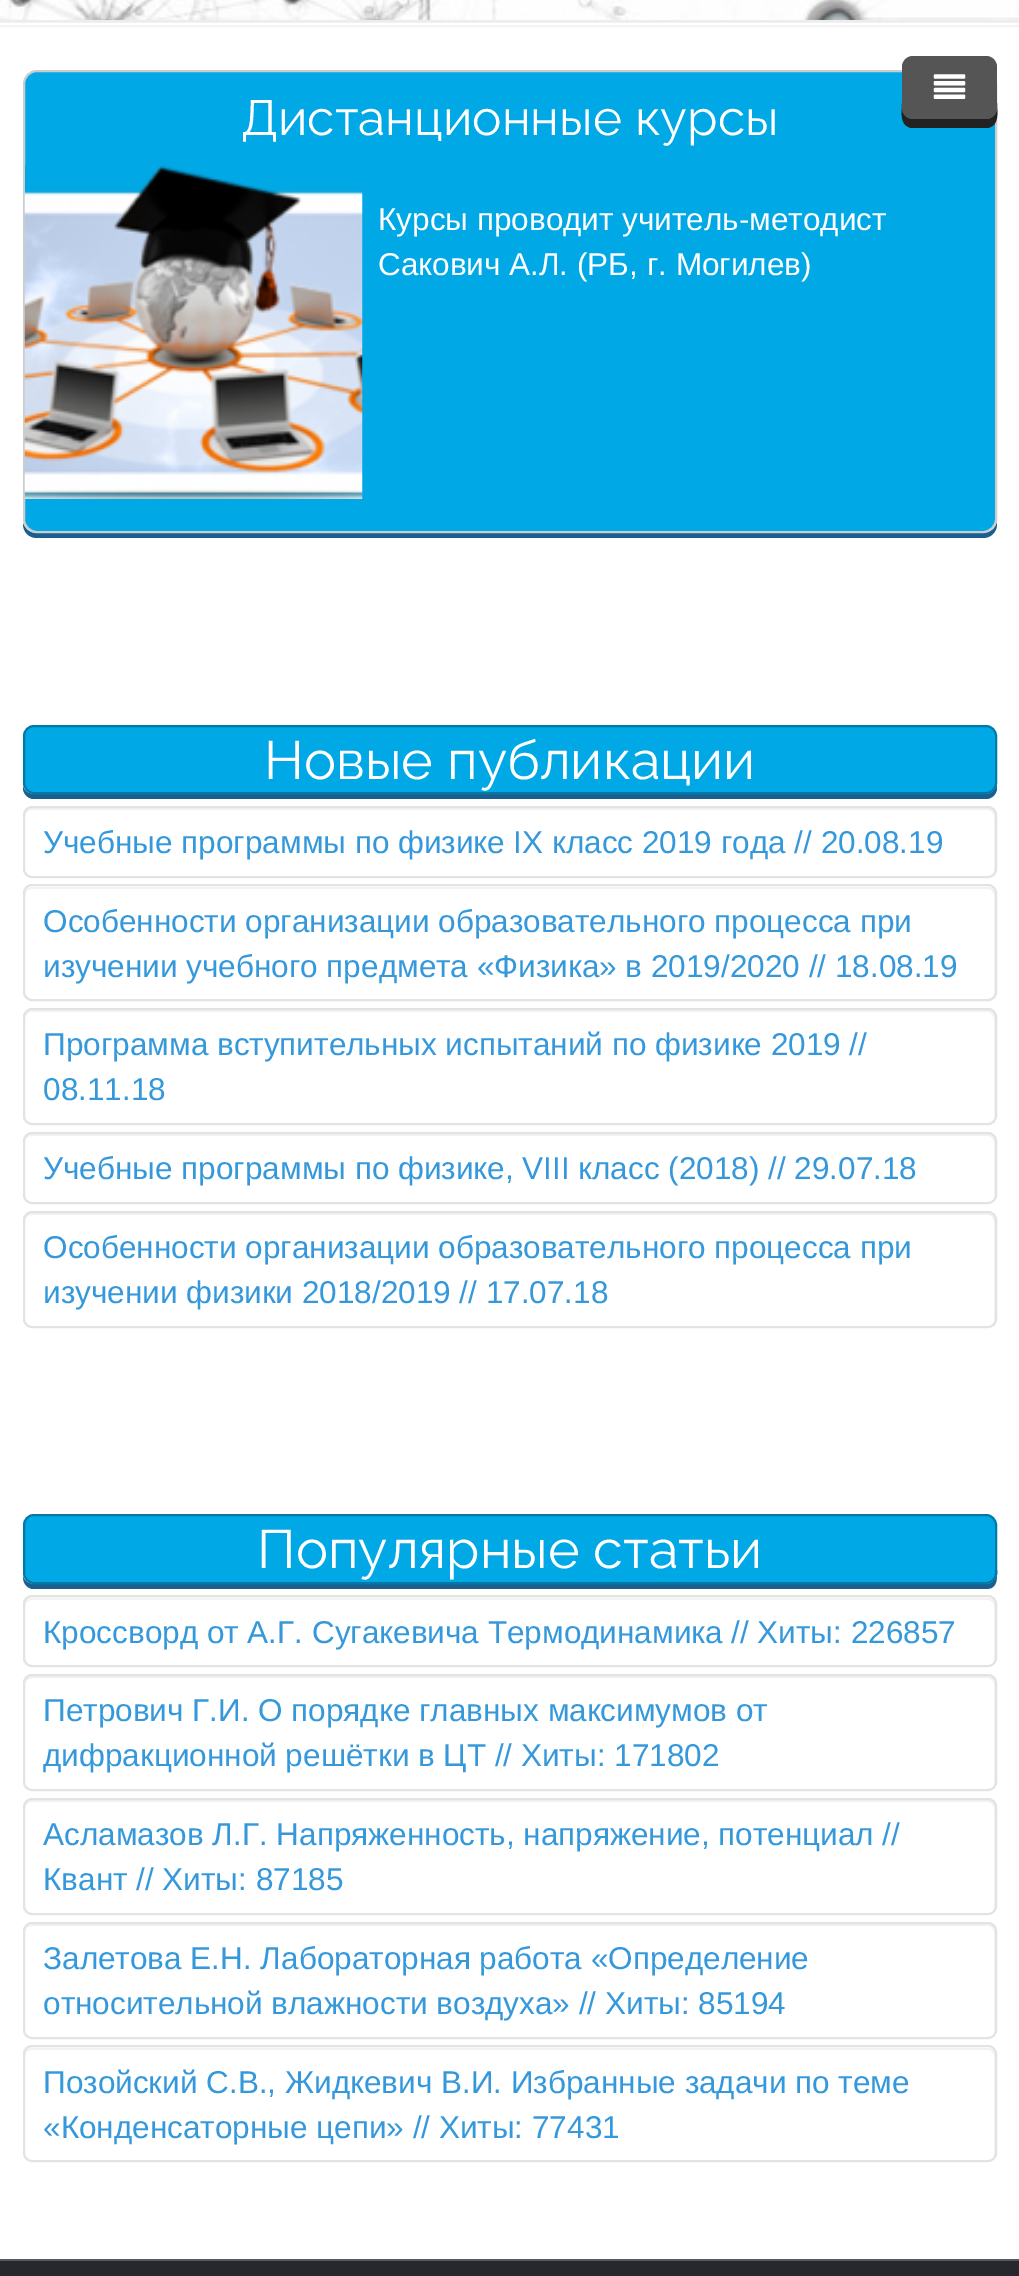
%!PS-Adobe-3.0
%%BoundingBox: 0 0 1019 2276
%%LanguageLevel: 3
%%Pages: 1
%%EndComments
%%BeginProlog
/setalpha { dup .setfillconstantalpha .setstrokeconstantalpha } def
/rrect { 5 dict begin { /r /h /w /y /x } { exch def } forall
  x r add y moveto x w add y 2 copy h add r arct x w add y h add x 1 index r arct
  x y h add x y r arct x y 2 copy exch w add exch r arct closepath end } def
/softshadow { 12 dict begin { /a /b /q /h /w /y /x } { exch def } forall gsave /was 0 def
  9 -2 -9 { dup b mul 4 div /e exch def 1 sub .425 mul 2.718 exch exp 1 add a .99 .min exch div /now exch def
    1 1 now sub 1 was sub div sub setalpha /was now def
    w h .min e 2 mul add 0 gt { x e sub y e sub w e 2 mul add h e 2 mul add
      q e add b .6 mul add w h .min 2 div e add .min 0 .max rrect fill } if } for grestore end } def
/drawimage { 5 dict begin { /h /w /y /x /name } { exch def } forall
  gsave x y translate w h scale
  w h 8 [w 0 0 h 0 0] name (r) file false 3 colorimage grestore end } def
%%EndProlog
%%BeginSetup
<< /PageSize [1019 2276] /PageUsesTransparency true >> setpagedevice
%%EndSetup
%%Page: 1 1
0 .pushpdf14devicefilter
0 2276 translate 1 -1 scale
4 setmiterlimit
1 setgray
0 0 1019 2276 rectfill
0 setgray
-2 -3 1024 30 0 1 0.05 softshadow
(images/1.raw) 0 0 1019 20 drawimage
0.929 setgray
0 20 1019 2 rectfill
1 setgray
0 23 1019 2 rectfill
0.098 0.376 0.565 setrgbcolor
newpath 23 523 moveto 23 524 lineto 23 532 29 538 37 538 curveto 983 538 lineto 991 538 997 532 997 524 curveto 997 85 lineto 997 520 lineto 997 527 991 533 983 533 curveto 36 533 lineto 30 533 25 529 23 523 curveto closepath fill
0 0.659 0.902 setrgbcolor
24 71 972 461 13 rrect gsave fill grestore
0.8 setgray
2 setlinewidth
stroke
(images/2.raw) 24 165 339 334 drawimage
0.133 setgray
newpath 902 74 moveto 902 103 lineto 902 112 899 125 911 128 curveto 988 128 lineto 1000 125 997 112 997 103 curveto 997 74 lineto 997 108 lineto 997 114 992 119 986 119 curveto 914 119 lineto 907 119 902 114 902 108 curveto closepath fill
0.333 setgray
902 56 95 63 11 rrect fill
(images/3.raw) 933 74 33 25 drawimage
0.098 0.376 0.565 setrgbcolor
newpath 23 786 moveto 23 788 lineto 23 794 28 799 34 799 curveto 986 799 lineto 992 799 997 794 997 788 curveto 997 738 lineto 997 783 lineto 997 789 992 794 986 794 curveto 34 794 lineto 29 794 24 791 23 786 curveto closepath fill
0 0.659 0.902 setrgbcolor
24 726 972 67 10 rrect gsave fill grestore
0 0.478 0.655 setrgbcolor
stroke
0.949 setgray
newpath 32 810 moveto 988 810 lineto 991 810 994 813 994 817 curveto 994 872 lineto 995 871 995 869 995 868 curveto 995 815 lineto 995 811 992 808 988 808 curveto 32 808 lineto 28 808 25 811 25 815 curveto 25 817 lineto 25 813 28 810 32 810 curveto closepath fill
0.89 setgray
24 807 972 70 8 rrect stroke
0.949 setgray
newpath 32 889 moveto 988 889 lineto 991 889 994 892 994 896 curveto 994 996 lineto 995 995 995 993 995 992 curveto 995 894 lineto 995 890 992 887 988 887 curveto 32 887 lineto 28 887 25 890 25 894 curveto 25 896 lineto 25 892 28 889 32 889 curveto closepath fill
0.89 setgray
24 885 972 115 8 rrect stroke
0.949 setgray
newpath 32 1012 moveto 988 1012 lineto 991 1012 994 1016 994 1019 curveto 994 1120 lineto 995 1119 995 1117 995 1116 curveto 995 1017 lineto 995 1013 992 1010 988 1010 curveto 32 1010 lineto 28 1010 25 1013 25 1017 curveto 25 1019 lineto 25 1016 28 1012 32 1012 curveto closepath fill
0.89 setgray
24 1009 972 115 8 rrect stroke
0.949 setgray
newpath 32 1136 moveto 988 1136 lineto 991 1136 994 1139 994 1143 curveto 994 1199 lineto 995 1198 995 1196 995 1195 curveto 995 1141 lineto 995 1137 992 1134 988 1134 curveto 32 1134 lineto 28 1134 25 1137 25 1141 curveto 25 1143 lineto 25 1139 28 1136 32 1136 curveto closepath fill
0.89 setgray
24 1133 972 70 8 rrect stroke
0.949 setgray
newpath 32 1215 moveto 988 1215 lineto 991 1215 994 1218 994 1222 curveto 994 1322 lineto 995 1321 995 1319 995 1318 curveto 995 1220 lineto 995 1216 992 1213 988 1213 curveto 32 1213 lineto 28 1213 25 1216 25 1220 curveto 25 1222 lineto 25 1218 28 1215 32 1215 curveto closepath fill
0.89 setgray
24 1212 972 115 8 rrect stroke
0.098 0.376 0.565 setrgbcolor
newpath 23 1576 moveto 23 1582 25 1587 32 1589 curveto 986 1589 lineto 998 1589 997 1578 997 1570 curveto 997 1528 lineto 997 1573 lineto 997 1579 992 1584 986 1584 curveto 34 1584 lineto 29 1584 24 1581 23 1576 curveto closepath fill
0 0.659 0.902 setrgbcolor
24 1515 972 68 10 rrect gsave fill grestore
0 0.478 0.655 setrgbcolor
stroke
0.949 setgray
newpath 32 1600 moveto 988 1600 lineto 991 1600 994 1603 994 1606 curveto 994 1662 lineto 995 1661 995 1659 995 1658 curveto 995 1605 lineto 995 1601 992 1598 988 1598 curveto 32 1598 lineto 28 1598 25 1601 25 1605 curveto 25 1606 lineto 25 1603 28 1600 32 1600 curveto closepath fill
0.89 setgray
24 1596 972 70 8 rrect stroke
0.949 setgray
newpath 32 1678 moveto 988 1678 lineto 991 1678 994 1682 994 1685 curveto 994 1786 lineto 995 1785 995 1783 995 1782 curveto 995 1683 lineto 995 1679 992 1676 988 1676 curveto 32 1676 lineto 28 1676 25 1679 25 1683 curveto 25 1685 lineto 25 1682 28 1678 32 1678 curveto closepath fill
0.89 setgray
24 1675 972 115 8 rrect stroke
0.949 setgray
newpath 32 1802 moveto 988 1802 lineto 991 1802 994 1805 994 1809 curveto 994 1910 lineto 995 1909 995 1907 995 1906 curveto 995 1807 lineto 995 1803 992 1800 988 1800 curveto 32 1800 lineto 28 1800 25 1803 25 1807 curveto 25 1809 lineto 25 1805 28 1802 32 1802 curveto closepath fill
0.89 setgray
24 1799 972 115 8 rrect stroke
0.949 setgray
newpath 32 1926 moveto 988 1926 lineto 991 1926 994 1929 994 1933 curveto 994 2033 lineto 995 2032 995 2030 995 2029 curveto 995 1931 lineto 995 1927 992 1924 988 1924 curveto 32 1924 lineto 28 1924 25 1927 25 1931 curveto 25 1933 lineto 25 1929 28 1926 32 1926 curveto closepath fill
0.89 setgray
24 1923 972 115 8 rrect stroke
0.949 setgray
newpath 32 2050 moveto 988 2050 lineto 991 2050 994 2053 994 2056 curveto 994 2157 lineto 995 2156 995 2154 995 2153 curveto 995 2055 lineto 995 2051 992 2048 988 2048 curveto 32 2048 lineto 28 2048 25 2051 25 2055 curveto 25 2056 lineto 25 2053 28 2050 32 2050 curveto closepath fill
0.89 setgray
24 2046 972 115 8 rrect stroke
0.149 0.157 0.176 setrgbcolor
0 2261 1019 15 rectfill
0.333 0.345 0.396 setrgbcolor
0 2259 1019 2 rectfill
/Raleway-Thin [49.5 0 0 -49.5 0 0] selectfont
1 setgray
241 135 moveto (Дистанционные курсы) show
/LiberationSans-Regular [31.5 0 0 -31.5 0 0] selectfont
378 230 moveto (Курсы проводит учитель-методист) show
378 275 moveto (Сакович А.Л. \(РБ, г. Могилев\)) show
/Raleway-Thin [54 0 0 -54 0 0] selectfont
264 779 moveto (Новые публикации) show
/LiberationSans-Regular [31.5 0 0 -31.5 0 0] selectfont
0.204 0.596 0.859 setrgbcolor
43 853 moveto (Учебные программы по физике IX класс 2019 года // 20.08.19) show
43 932 moveto (Особенности организации образовательного процесса при) show
43 977 moveto (изучении учебного предмета «Физика» в 2019/2020 // 18.08.19) show
43 1055 moveto (Программа вступительных испытаний по физике 2019 //) show
43 1100 moveto (08.11.18) show
43 1179 moveto (Учебные программы по физике, VIII класс \(2018\) // 29.07.18) show
43 1258 moveto (Особенности организации образовательного процесса при) show
43 1303 moveto (изучении физики 2018/2019 // 17.07.18) show
/Raleway-Thin [54 0 0 -54 0 0] selectfont
1 setgray
257 1568 moveto (Популярные статьи) show
/LiberationSans-Regular [31.5 0 0 -31.5 0 0] selectfont
0.204 0.596 0.859 setrgbcolor
43 1643 moveto (Кроссворд от А.Г. Сугакевича Термодинамика // Хиты: 226857) show
43 1721 moveto (Петрович Г.И. О порядке главных максимумов от) show
43 1766 moveto (дифракционной решётки в ЦТ // Хиты: 171802) show
43 1845 moveto (Асламазов Л.Г. Напряженность, напряжение, потенциал //) show
43 1890 moveto (Квант // Хиты: 87185) show
43 1969 moveto (Залетова Е.Н. Лабораторная работа «Определение) show
43 2014 moveto (относительной влажности воздуха» // Хиты: 85194) show
43 2093 moveto (Позойский С.В., Жидкевич В.И. Избранные задачи по теме) show
43 2138 moveto («Конденсаторные цепи» // Хиты: 77431) show
.poppdf14devicefilter showpage
%%EOF
